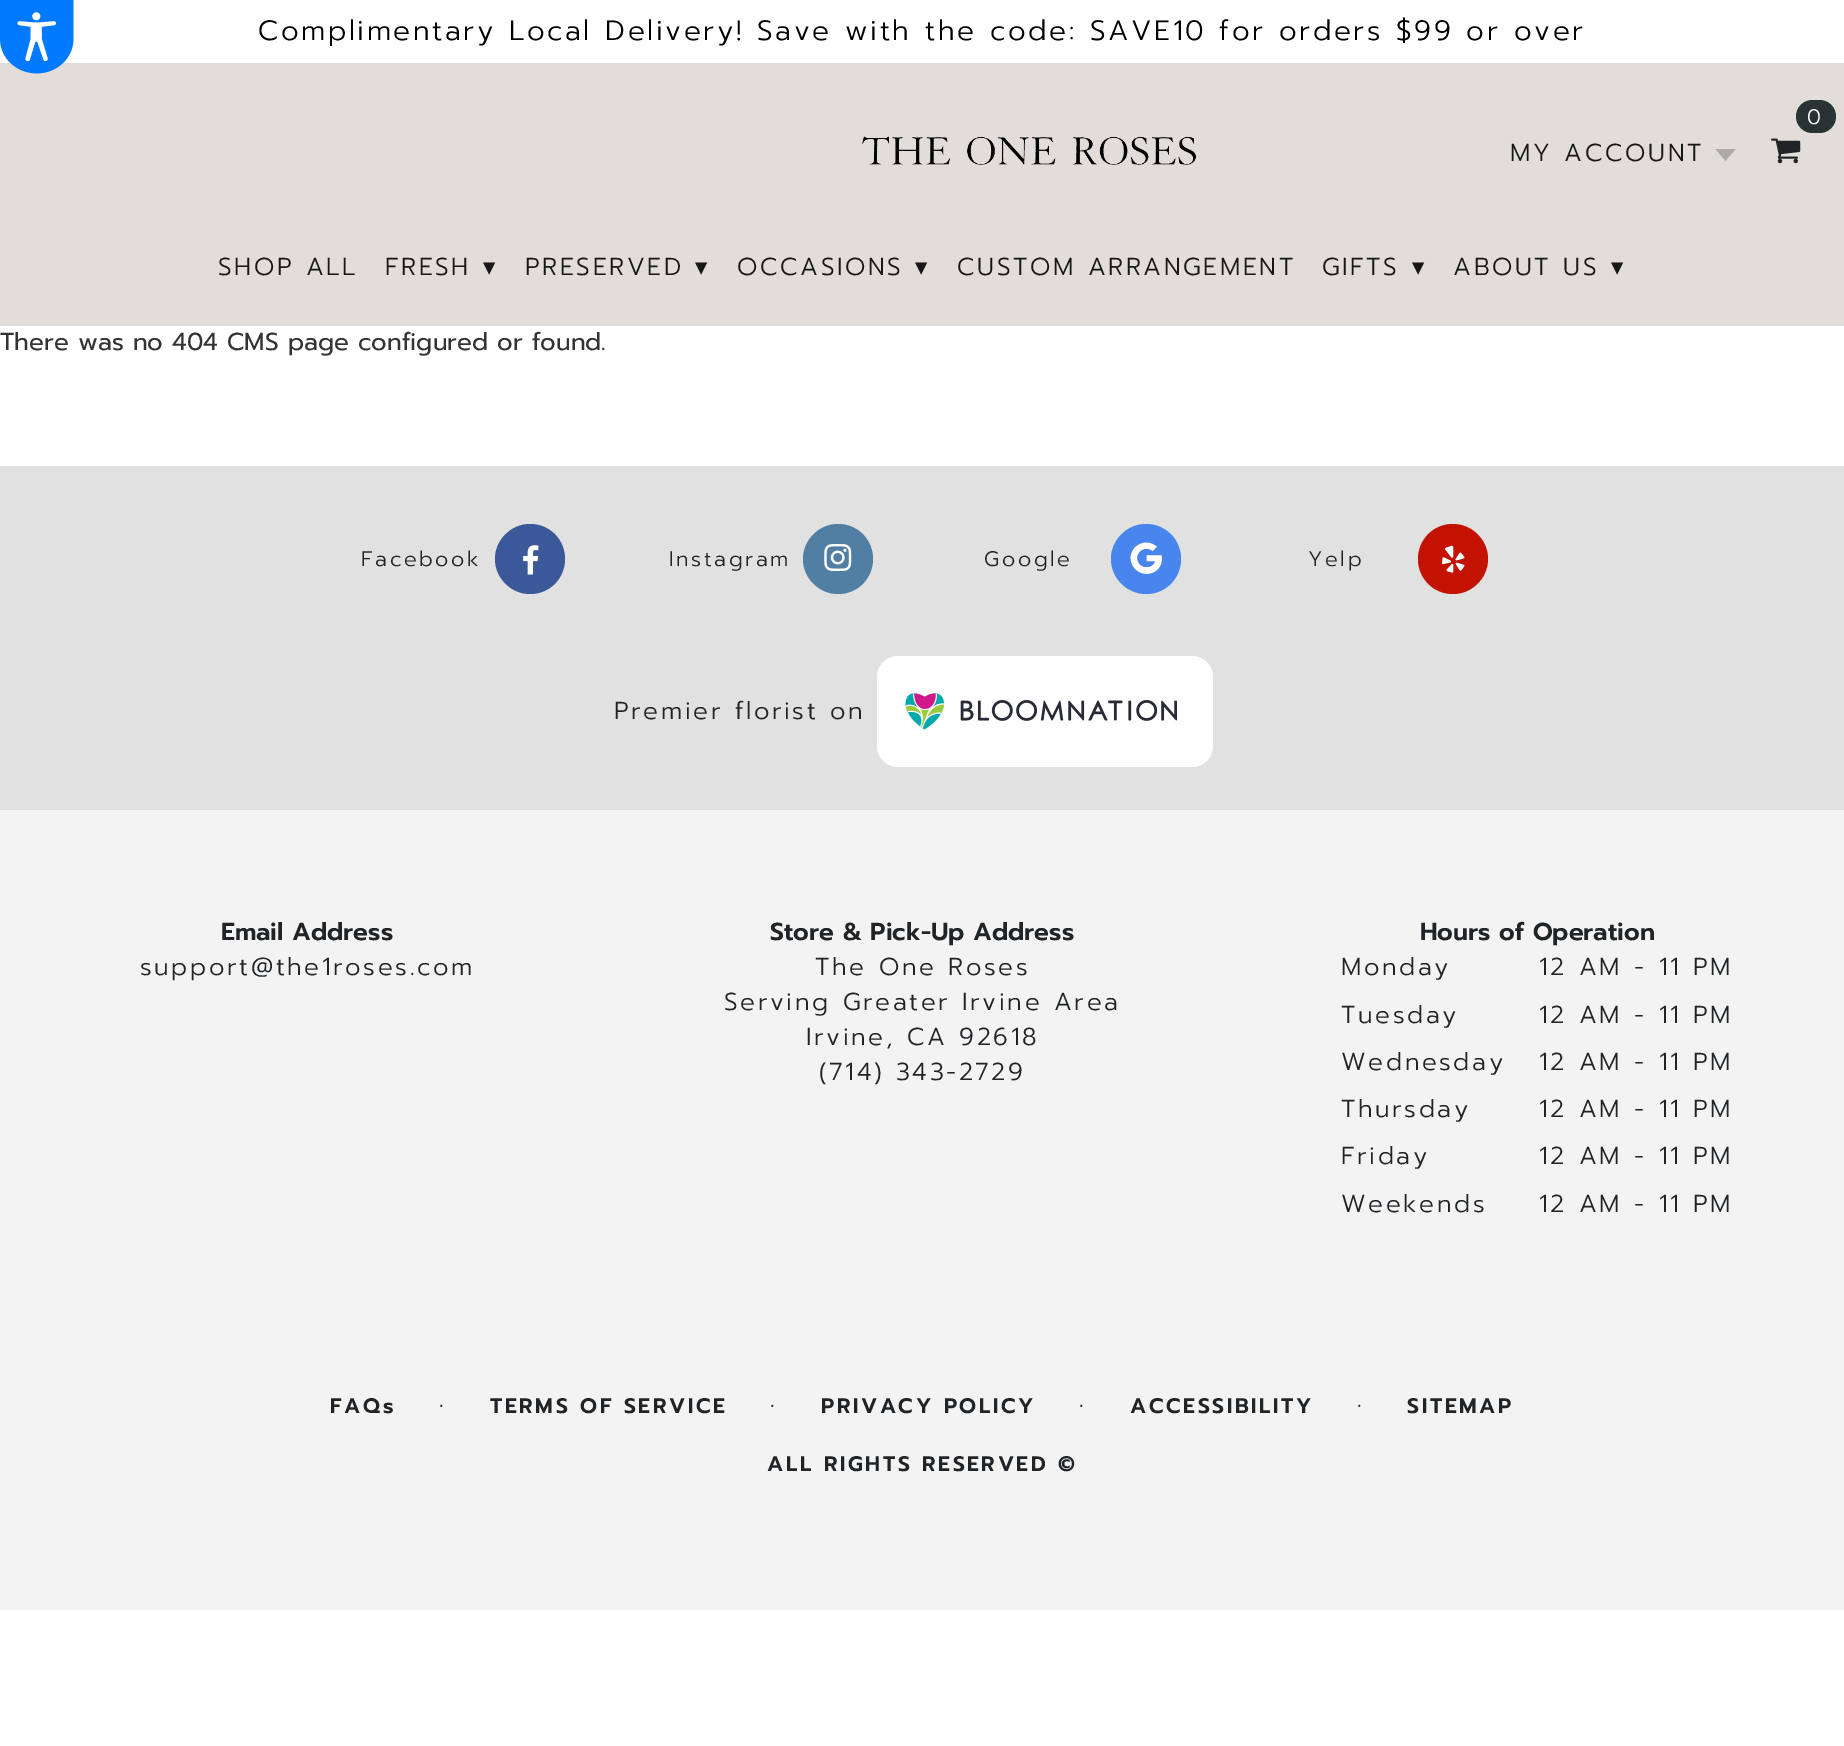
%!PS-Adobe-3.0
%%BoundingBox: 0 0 1844 1746
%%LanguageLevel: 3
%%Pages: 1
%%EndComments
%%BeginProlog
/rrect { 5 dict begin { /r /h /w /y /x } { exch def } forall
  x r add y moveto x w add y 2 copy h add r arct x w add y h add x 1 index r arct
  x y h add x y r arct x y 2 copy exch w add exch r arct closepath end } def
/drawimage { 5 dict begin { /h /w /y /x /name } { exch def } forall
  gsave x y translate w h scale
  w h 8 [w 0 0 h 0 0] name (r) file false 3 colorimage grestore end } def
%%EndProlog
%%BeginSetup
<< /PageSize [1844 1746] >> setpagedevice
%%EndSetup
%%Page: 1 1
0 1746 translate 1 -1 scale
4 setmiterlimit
1 setgray
0 0 1844 1746 rectfill
0.886 0.867 0.847 setrgbcolor
0 63 1844 263 rectfill
(images/1.raw) 0 0 74 74 drawimage
(images/2.raw) 862 136 335 29 drawimage
0.161 0.2 0.2 setrgbcolor
1796 100 40 33 16.5 rrect fill
(images/3.raw) 1771 138 30 26 drawimage
(images/4.raw) 1715 149 21 12 drawimage
0.953 setgray
0 810 1844 800 rectfill
0.882 setgray
0 466 1844 344 rectfill
0.231 0.349 0.596 setrgbcolor
newpath 565 559 moveto 565 540 550 524 530 524 curveto 511 524 495 540 495 559 curveto 495 578 511 594 530 594 curveto 550 594 565 578 565 559 curveto closepath fill
(images/5.raw) 523 545 16 30 drawimage
0.318 0.498 0.643 setrgbcolor
newpath 873 559 moveto 873 540 858 524 838 524 curveto 819 524 803 540 803 559 curveto 803 578 819 594 838 594 curveto 858 594 873 578 873 559 curveto closepath fill
(images/6.raw) 824 544 28 27 drawimage
0.282 0.522 0.929 setrgbcolor
newpath 1181 559 moveto 1181 540 1166 524 1146 524 curveto 1127 524 1111 540 1111 559 curveto 1111 578 1127 594 1146 594 curveto 1166 594 1181 578 1181 559 curveto closepath fill
(images/7.raw) 1130 542 32 32 drawimage
0.769 0.071 0 setrgbcolor
newpath 1488 559 moveto 1488 540 1472 524 1453 524 curveto 1433 524 1418 540 1418 559 curveto 1418 578 1433 594 1453 594 curveto 1472 594 1488 578 1488 559 curveto closepath fill
(images/8.raw) 1442 545 23 28 drawimage
1 setgray
877 656 336 111 21 rrect fill
(images/9.raw) 905 693 273 37 drawimage
/Prompt-Light [28 0 0 -28 0 0] selectfont
0 setgray
258 40 moveto 2.62 0 (Complimentary Local Delivery! Save with the code: SAVE10 for orders $99 or over) ashow
/Prompt-Light [21 0 0 -21 0 0] selectfont
1 setgray
1807 124 moveto 2.62 0 (0) ashow
/Prompt-Light [24.5 0 0 -24.5 0 0] selectfont
0.09 setgray
1510 161 moveto 2.62 0 (MY ACCOUNT) ashow
218 275 moveto 2.62 0 (SHOP ALL) ashow
385 275 moveto 2.62 0 (FRESH) ashow
/DejaVuSans-Regular [24.5 0 0 -24.5 0 0] selectfont
483 275 moveto 2.62 0 (▾) ashow
/Prompt-Light [24.5 0 0 -24.5 0 0] selectfont
525 275 moveto 2.62 0 (PRESERVED) ashow
/DejaVuSans-Regular [24.5 0 0 -24.5 0 0] selectfont
695 275 moveto 2.62 0 (▾) ashow
/Prompt-Light [24.5 0 0 -24.5 0 0] selectfont
737 275 moveto 2.62 0 (OCCASIONS) ashow
/DejaVuSans-Regular [24.5 0 0 -24.5 0 0] selectfont
915 275 moveto 2.62 0 (▾) ashow
/Prompt-Light [24.5 0 0 -24.5 0 0] selectfont
957 275 moveto 2.62 0 (CUSTOM ARRANGEMENT) ashow
1322 275 moveto 2.62 0 (GIFTS) ashow
/DejaVuSans-Regular [24.5 0 0 -24.5 0 0] selectfont
1412 275 moveto 2.62 0 (▾) ashow
/Prompt-Light [24.5 0 0 -24.5 0 0] selectfont
1453 275 moveto 2.62 0 (ABOUT US) ashow
/DejaVuSans-Regular [24.5 0 0 -24.5 0 0] selectfont
1611 275 moveto 2.62 0 (▾) ashow
/Prompt-Regular [24.5 0 0 -24.5 0 0] selectfont
0.2 setgray
0 350 moveto (There was no 404 CMS page configured or found.) show
/Prompt-Light [21 0 0 -21 0 0] selectfont
0.129 0.141 0.153 setrgbcolor
361 566 moveto 2.62 0 (Facebook) ashow
669 566 moveto 2.62 0 (Instagram) ashow
984 566 moveto 2.62 0 (Google) ashow
1308 566 moveto 2.62 0 (Yelp) ashow
/Prompt-Light [24.5 0 0 -24.5 0 0] selectfont
614 719 moveto 2.62 0 (Premier florist on) ashow
/Prompt-SemiBold [24.5 0 0 -24.5 0 0] selectfont
221 940 moveto (Email Address) show
/Prompt-Light [24.5 0 0 -24.5 0 0] selectfont
140 975 moveto 2.62 0 (support@the1roses.com) ashow
/Prompt-SemiBold [24.5 0 0 -24.5 0 0] selectfont
770 940 moveto (Store & Pick-Up Address) show
/Prompt-Light [24.5 0 0 -24.5 0 0] selectfont
815 975 moveto 2.62 0 (The One Roses) ashow
724 1010 moveto 2.62 0 (Serving Greater Irvine Area) ashow
806 1045 moveto 2.62 0 (Irvine, CA 92618) ashow
819 1080 moveto 2.62 0 (\(714\) 343-2729) ashow
/Prompt-SemiBold [24.5 0 0 -24.5 0 0] selectfont
1420 940 moveto (Hours of Operation) show
/Prompt-Light [24.5 0 0 -24.5 0 0] selectfont
1341 975 moveto 2.62 0 (Monday) ashow
1539 975 moveto 2.62 0 (12 AM - 11 PM) ashow
1341 1023 moveto 2.62 0 (Tuesday) ashow
1539 1023 moveto 2.62 0 (12 AM - 11 PM) ashow
1341 1070 moveto 2.62 0 (Wednesday) ashow
1539 1070 moveto 2.62 0 (12 AM - 11 PM) ashow
1341 1117 moveto 2.62 0 (Thursday) ashow
1539 1117 moveto 2.62 0 (12 AM - 11 PM) ashow
1341 1164 moveto 2.62 0 (Friday) ashow
1539 1164 moveto 2.62 0 (12 AM - 11 PM) ashow
1341 1212 moveto 2.62 0 (Weekends) ashow
1539 1212 moveto 2.62 0 (12 AM - 11 PM) ashow
/Prompt-SemiBold [21 0 0 -21 0 0] selectfont
330 1413 moveto 2.62 0 (FAQs) ashow
/Prompt-Light [24.5 0 0 -24.5 0 0] selectfont
439 1413 moveto 2.62 0 (·) ashow
/Prompt-SemiBold [21 0 0 -21 0 0] selectfont
490 1413 moveto 2.62 0 (TERMS OF SERVICE) ashow
/Prompt-Light [24.5 0 0 -24.5 0 0] selectfont
770 1413 moveto 2.62 0 (·) ashow
/Prompt-SemiBold [21 0 0 -21 0 0] selectfont
821 1413 moveto 2.62 0 (PRIVACY POLICY) ashow
/Prompt-Light [24.5 0 0 -24.5 0 0] selectfont
1079 1413 moveto 2.62 0 (·) ashow
/Prompt-SemiBold [21 0 0 -21 0 0] selectfont
1130 1413 moveto 2.62 0 (ACCESSIBILITY) ashow
/Prompt-Light [24.5 0 0 -24.5 0 0] selectfont
1357 1413 moveto 2.62 0 (·) ashow
/Prompt-SemiBold [21 0 0 -21 0 0] selectfont
1407 1413 moveto 2.62 0 (SITEMAP) ashow
767 1471 moveto 2.62 0 (ALL RIGHTS RESERVED ©) ashow
showpage
%%EOF
